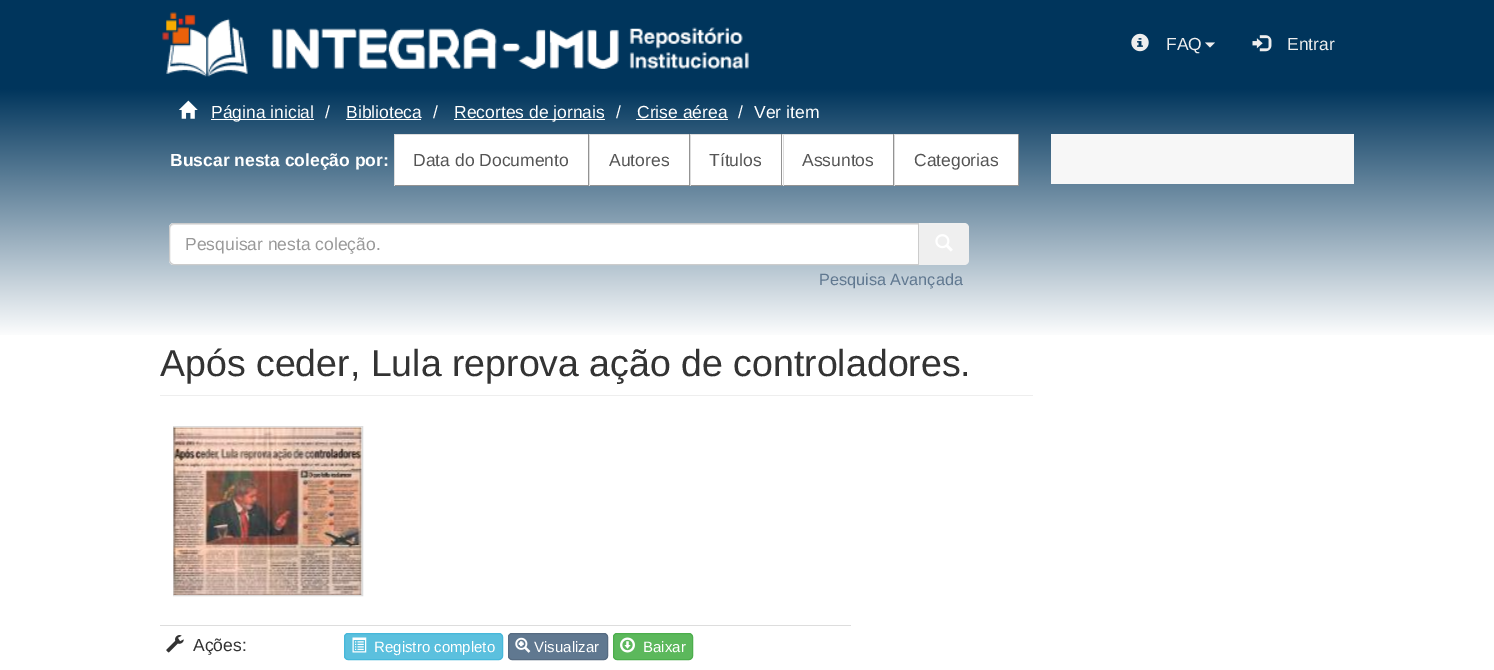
%!PS-Adobe-3.0
%%BoundingBox: 0 0 1494 670
%%LanguageLevel: 3
%%Pages: 1
%%EndComments
%%BeginProlog
/rrect { 5 dict begin { /r /h /w /y /x } { exch def } forall
  x r add y moveto x w add y 2 copy h add r arct x w add y h add x 1 index r arct
  x y h add x y r arct x y 2 copy exch w add exch r arct closepath end } def
/drawimage { 5 dict begin { /h /w /y /x /name } { exch def } forall
  gsave x y translate w h scale
  w h 8 [w 0 0 h 0 0] name (r) file false 3 colorimage grestore end } def
%%EndProlog
%%BeginSetup
<< /PageSize [1494 670] >> setpagedevice
%%EndSetup
%%Page: 1 1
0 670 translate 1 -1 scale
4 setmiterlimit
1 setgray
0 0 1494 670 rectfill
0 0.208 0.361 setrgbcolor
0 0 1494 89 rectfill
(images/1.raw) 162 12 86 65 drawimage
(images/2.raw) 272 27 477 42 drawimage
(images/3.raw) 1131 33 18 19 drawimage
0.933 setgray
newpath 1205 42.5 moveto 1215 42.5 lineto 1210 47.5 lineto closepath fill
(images/4.raw) 1252 35 20 17 drawimage
(images/5.raw) 0 89 1494 246 drawimage
(images/6.raw) 178 100 20 19 drawimage
1 setgray
211 119 103 1 rectfill
346 119 75 1 rectfill
454 119 151 1 rectfill
636 119 92 1 rectfill
395 135 193 50 rectfill
0.867 setgray
394 134 625 1 rectfill
0.576 setgray
588 134 1 52 rectfill
394 185 195 1 rectfill
0.867 setgray
394 134 1 52 rectfill
1 setgray
590 135 99 50 rectfill
0.576 setgray
689 134 1 52 rectfill
589 185 101 1 rectfill
0.867 setgray
589 134 1 52 rectfill
1 setgray
691 135 92 50 rectfill
0.576 setgray
781 134 1 52 rectfill
690 185 93 1 rectfill
0.867 setgray
690 134 1 52 rectfill
1 setgray
784 135 109 50 rectfill
0.576 setgray
893 134 1 52 rectfill
783 185 111 1 rectfill
0.867 setgray
783 134 1 52 rectfill
1 setgray
895 135 123 50 rectfill
0.576 setgray
1018 134 1 52 rectfill
894 185 125 1 rectfill
0.867 setgray
894 134 1 52 rectfill
1 setgray
newpath 174 223 moveto 919 223 lineto 919 265 lineto 174 265 lineto 171 265 169 263 169 260 curveto 169 228 lineto 169 225 171 223 174 223 curveto closepath fill
0.925 setgray
newpath 174 225 moveto 918 225 lineto 918 224 lineto 174 224 lineto 172 224 170 226 170 228 curveto 170 229 lineto 170 227 172 225 174 225 curveto closepath fill
0.8 setgray
newpath 174 223.5 moveto 918.5 223.5 lineto 918.5 264.5 lineto 174 264.5 lineto 171.5 264.5 169.5 262.5 169.5 260 curveto 169.5 228 lineto 169.5 225.5 171.5 223.5 174 223.5 curveto closepath stroke
0.937 setgray
newpath 919 223 moveto 964 223 lineto 967 223 969 225 969 228 curveto 969 260 lineto 969 263 967 265 964 265 curveto 919 265 lineto closepath fill
(images/7.raw) 935 234 18 18 drawimage
0.933 setgray
160 395 873 1 rectfill
0.867 setgray
173.5 426.5 189 169 rectstroke
(images/8.raw) 173 427 189 168 drawimage
(images/9.raw) 166 635 18 18 drawimage
160 625 691 1 rectfill
0.357 0.753 0.871 setrgbcolor
344.5 633.5 158 26 3.5 rrect gsave fill grestore
0.275 0.722 0.855 setrgbcolor
stroke
(images/10.raw) 352 637 15 16 drawimage
0.376 0.471 0.565 setrgbcolor
508.5 633.5 99 26 3.5 rrect gsave fill grestore
0.337 0.42 0.506 setrgbcolor
stroke
(images/11.raw) 515 637 16 16 drawimage
0.361 0.722 0.361 setrgbcolor
613.5 633.5 79 26 3.5 rrect gsave fill grestore
0.298 0.682 0.298 setrgbcolor
stroke
(images/12.raw) 620 637 15 16 drawimage
0.969 setgray
1051 134 303 50 rectfill
/LiberationSans-Regular [17.5 0 0 -17.5 0 0] selectfont
0.933 setgray
1166 50 moveto (FAQ) show
1287 50 moveto (Entrar) show
1 setgray
211 118 moveto (Página inicial) show
325 118 moveto (/) show
346 118 moveto (Biblioteca) show
433 118 moveto (/) show
454 118 moveto (Recortes de jornais) show
616 118 moveto (/) show
637 118 moveto (Crise aérea) show
738 118 moveto (/) show
754 118 moveto (Ver item) show
/LiberationSans-Bold [17.5 0 0 -17.5 0 0] selectfont
170 166 moveto (Buscar nesta coleção por:) show
/LiberationSans-Regular [17.5 0 0 -17.5 0 0] selectfont
0.333 setgray
413 166 moveto (Data do Documento) show
609 166 moveto (Autores) show
709 166 moveto (Títulos) show
802 166 moveto (Assuntos) show
914 166 moveto (Categorias) show
0.6 setgray
185 250 moveto (Pesquisar nesta coleção.) show
/LiberationSans-Regular [16.25 0 0 -16.25 0 0] selectfont
0.376 0.471 0.565 setrgbcolor
819 285 moveto (Pesquisa Avançada) show
/LiberationSans-Regular [37.5 0 0 -37.5 0 0] selectfont
0.2 setgray
160 376 moveto (Após ceder, Lula reprova ação de controladores.) show
/LiberationSans-Regular [17.5 0 0 -17.5 0 0] selectfont
193 651 moveto (Ações:) show
/LiberationSans-Regular [15 0 0 -15 0 0] selectfont
1 setgray
374 652 moveto (Registro completo) show
534 652 moveto (Visualizar) show
643 652 moveto (Baixar) show
showpage
%%EOF
